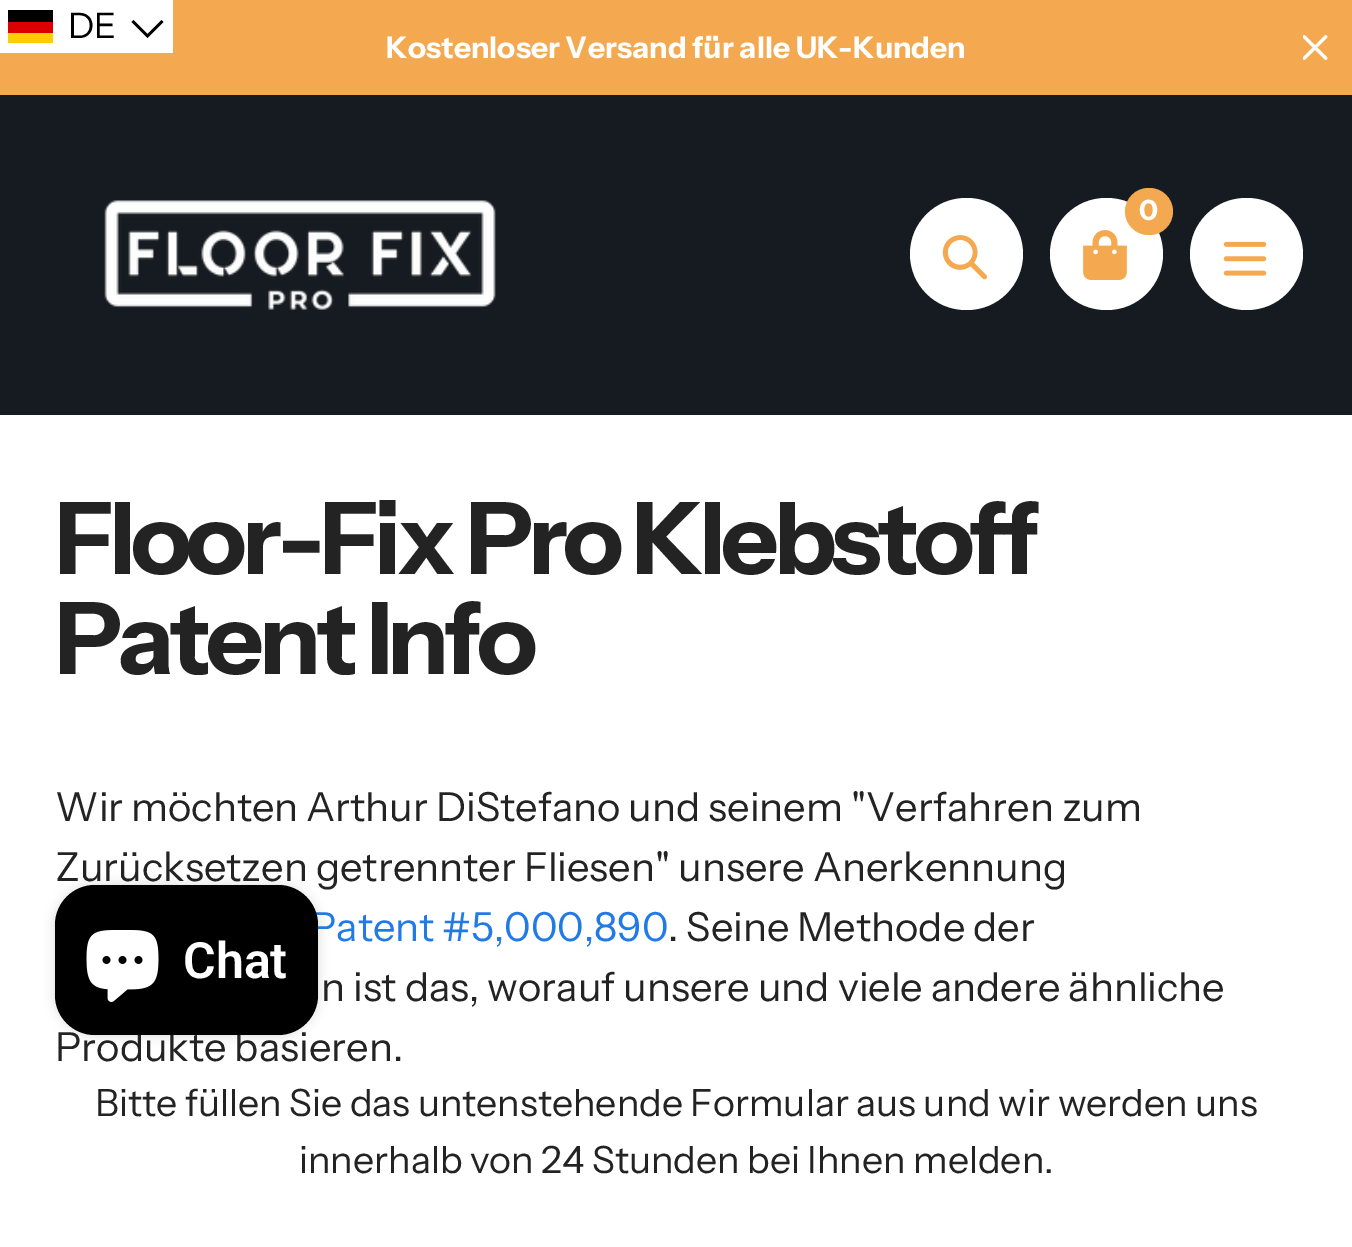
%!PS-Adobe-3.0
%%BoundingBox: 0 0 1352 1247
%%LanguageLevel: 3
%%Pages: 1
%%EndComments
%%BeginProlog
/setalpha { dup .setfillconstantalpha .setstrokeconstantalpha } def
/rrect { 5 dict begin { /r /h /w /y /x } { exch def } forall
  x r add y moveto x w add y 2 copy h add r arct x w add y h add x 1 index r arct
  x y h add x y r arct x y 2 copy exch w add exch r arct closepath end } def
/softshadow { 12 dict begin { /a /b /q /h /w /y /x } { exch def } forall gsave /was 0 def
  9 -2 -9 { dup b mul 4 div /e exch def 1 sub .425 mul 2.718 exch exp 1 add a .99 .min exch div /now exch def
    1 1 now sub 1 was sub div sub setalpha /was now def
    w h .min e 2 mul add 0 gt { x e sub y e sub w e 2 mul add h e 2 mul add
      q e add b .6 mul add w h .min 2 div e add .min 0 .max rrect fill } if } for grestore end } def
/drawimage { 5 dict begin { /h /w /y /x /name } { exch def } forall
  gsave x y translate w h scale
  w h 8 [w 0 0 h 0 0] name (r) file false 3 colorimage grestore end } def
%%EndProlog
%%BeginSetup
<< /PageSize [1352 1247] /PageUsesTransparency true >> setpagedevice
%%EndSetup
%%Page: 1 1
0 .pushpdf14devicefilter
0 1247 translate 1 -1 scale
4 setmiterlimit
1 setgray
0 0 1352 1247 rectfill
0.957 0.663 0.314 setrgbcolor
0 0 1352 95 rectfill
1 setgray
0 0 173 53 rectfill
1 0.808 0 setrgbcolor
8 33 45 10 rectfill
0 setgray
8 10 45 12 rectfill
0.867 0 0 setrgbcolor
8 22 45 11 rectfill
0 setgray
2.5 setlinewidth
newpath 132.5 21 moveto 147.5 36 lineto 162.5 21 lineto stroke
(images/1.raw) 1303 35 25 25 drawimage
0.086 0.106 0.129 setrgbcolor
0 95 1352 320 rectfill
(images/2.raw) 104 200 392 110 drawimage
1 setgray
910 198 113 112 56 rrect fill
(images/3.raw) 942 235 46 45 drawimage
1050 198 113 112 56 rrect fill
(images/4.raw) 1083 230 44 50 drawimage
0.957 0.663 0.314 setrgbcolor
1125 188 48 47 23.5 rrect fill
1 setgray
1190 198 113 112 56 rrect fill
(images/5.raw) 1223 241 44 35 drawimage
0 setgray
55 885 263 150 40 6 0.15 softshadow
/InstrumentSans-Regular [35 0 0 -35 0 0] selectfont
68 38 moveto (DE) show
/InstrumentSans-Bold [30 0 0 -30 0 0] selectfont
1 setgray
386 58 moveto (Kostenloser Versand für alle UK-Kunden) show
/InstrumentSans-Bold [28 0 0 -28 0 0] selectfont
1139 220 moveto (0) show
/InstrumentSans-Bold [100 0 0 -100 0 0] selectfont
0.137 setgray
55 574 moveto -5 0 (Floor-Fix Pro Klebstoff) ashow
55 674 moveto -5 0 (Patent Info) ashow
/InstrumentSans-Regular [40 0 0 -40 0 0] selectfont
55 821 moveto (Wir möchten Arthur DiStefano und seinem "Verfahren zum) show
55 881 moveto (Zurücksetzen getrennter Fliesen" unsere Anerkennung) show
0.133 0.482 0.894 setrgbcolor
310 941 moveto (Patent #5,000,890) show
0.137 setgray
668 941 moveto (. Seine Methode der) show
321 1001 moveto (n ist das, worauf unsere und viele andere ähnliche) show
55 1061 moveto (Produkte basieren.) show
/InstrumentSans-Regular [37.5 0 0 -37.5 0 0] selectfont
95 1116 moveto (Bitte füllen Sie das untenstehende Formular aus und wir werden uns) show
299 1173 moveto (innerhalb von 24 Stunden bei Ihnen melden.) show
0 setgray
55 885 263 150 40 rrect fill
(images/6.raw) 86 930 73 72 drawimage
/Roboto-SemiBold [50 0 0 -50 0 0] selectfont
1 setgray
183 978 moveto (Chat) show
.poppdf14devicefilter showpage
%%EOF
